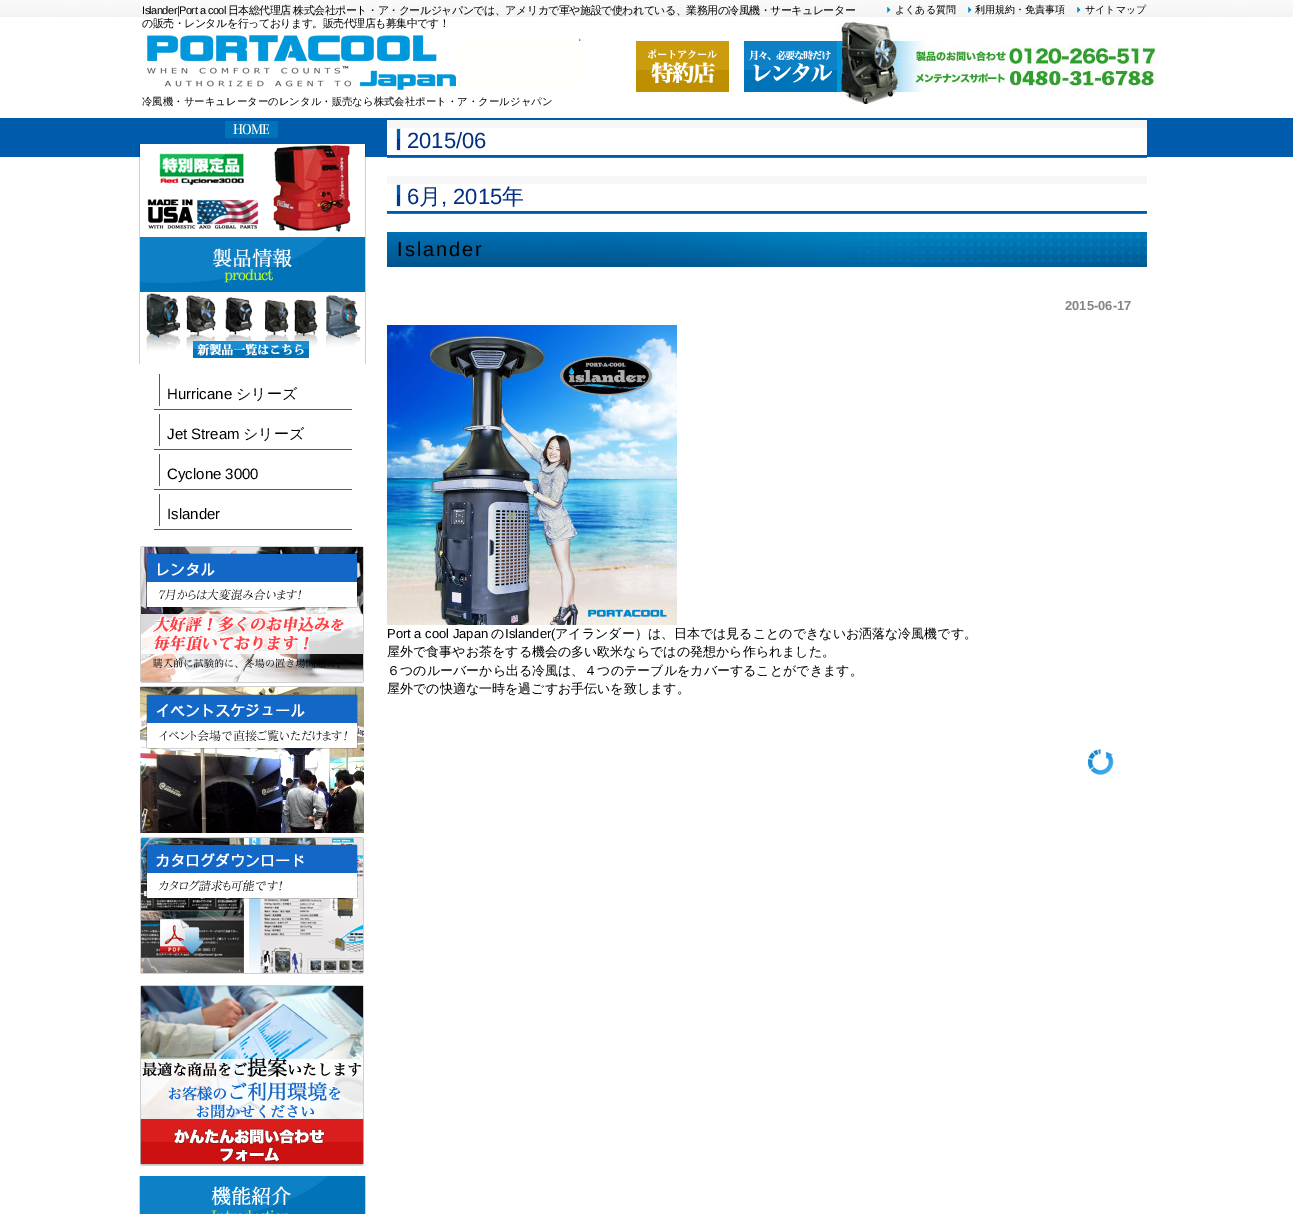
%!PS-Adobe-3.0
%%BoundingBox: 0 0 1293 1214
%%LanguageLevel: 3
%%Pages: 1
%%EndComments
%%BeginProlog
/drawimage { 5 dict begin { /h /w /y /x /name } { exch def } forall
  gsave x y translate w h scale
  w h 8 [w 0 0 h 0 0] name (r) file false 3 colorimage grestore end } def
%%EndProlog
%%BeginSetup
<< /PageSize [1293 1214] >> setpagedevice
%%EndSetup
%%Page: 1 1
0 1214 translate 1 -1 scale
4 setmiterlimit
1 setgray
0 0 1293 1214 rectfill
(images/1.raw) 0 0 1293 157 drawimage
(images/2.raw) 887 6 4 7 drawimage
(images/3.raw) 968 6 4 7 drawimage
(images/4.raw) 1077 6 4 7 drawimage
(images/5.raw) 147 35 434 55 drawimage
(images/6.raw) 636 41 93 51 drawimage
(images/7.raw) 744 41 93 51 drawimage
(images/8.raw) 837 20 320 85 drawimage
(images/9.raw) 225 121 53 17 drawimage
(images/10.raw) 139 144 227 91 drawimage
(images/11.raw) 139 235 227 129 drawimage
(images/12.raw) 154 374 198 36 drawimage
(images/12.raw) 154 414 198 36 drawimage
(images/12.raw) 154 454 198 36 drawimage
(images/12.raw) 154 494 198 36 drawimage
(images/13.raw) 140 546 224 137 drawimage
(images/14.raw) 140 686 224 147 drawimage
(images/15.raw) 140 837 224 137 drawimage
(images/16.raw) 140 985 224 181 drawimage
(images/17.raw) 139 1176 227 38 drawimage
(images/18.raw) 387 120 760 38 drawimage
(images/18.raw) 387 176 760 38 drawimage
(images/19.raw) 387 232 760 35 drawimage
(images/20.raw) 387 325 290 300 drawimage
(images/21.raw) 1088 749 26 26 drawimage
/LiberationSans-Regular [11 0 0 -11 0 0] selectfont
0 setgray
142 14 moveto -0.55 0 (Islander|Port a cool) ashow
/WenQuanYiZenHei-Medium [11 0 0 -11 0 0] selectfont
228 14 moveto -0.55 0 (日本総代理店 株式会社ポート・ア・クールジャパンでは、アメリカで軍や施設で使われている、業務用の冷風機・サーキュレーター) ashow
142 27 moveto -0.55 0 (の販売・レンタルを行っております。販売代理店も募集中です！) ashow
/WenQuanYiZenHei-Medium [10 0 0 -10 0 0] selectfont
895 13 moveto (よくある質問) show
975 13 moveto (利用規約・免責事項) show
1085 13 moveto (サイトマップ) show
/WenQuanYiZenHei-Medium [10.4 0 0 -10.4 0 0] selectfont
142 105 moveto (冷風機・サーキュレーターのレンタル・販売なら株式会社ポート・ア・クールジャパン) show
/LiberationSans-Regular [15 0 0 -15 0 0] selectfont
167 399 moveto (Hurricane) show
/WenQuanYiZenHei-Medium [15 0 0 -15 0 0] selectfont
236 399 moveto (シリーズ) show
/LiberationSans-Regular [15 0 0 -15 0 0] selectfont
167 439 moveto (Jet Stream) show
/WenQuanYiZenHei-Medium [15 0 0 -15 0 0] selectfont
243 439 moveto (シリーズ) show
/LiberationSans-Regular [15 0 0 -15 0 0] selectfont
167 479 moveto (Cyclone 3000) show
167 519 moveto (Islander) show
/LiberationSans-Regular [22 0 0 -22 0 0] selectfont
0.004 0.18 0.506 setrgbcolor
407 148 moveto (2015/06) show
407 204 moveto (6) show
/WenQuanYiZenHei-Medium [22 0 0 -22 0 0] selectfont
419 204 moveto (月) show
/LiberationSans-Regular [22 0 0 -22 0 0] selectfont
441 204 moveto (, 2015) show
/WenQuanYiZenHei-Medium [22 0 0 -22 0 0] selectfont
502 204 moveto (年) show
/LiberationSans-Regular [20 0 0 -20 0 0] selectfont
0 setgray
397 256 moveto 2 0 (Islander) ashow
/LiberationSans-Bold [13 0 0 -13 0 0] selectfont
0.522 setgray
1065 310 moveto (2015-06-17) show
/LiberationSans-Regular [13 0 0 -13 0 0] selectfont
0 setgray
387 638 moveto (Port a cool Japan) show
/WenQuanYiZenHei-Medium [13 0 0 -13 0 0] selectfont
491 638 moveto (の) show
/LiberationSans-Regular [13 0 0 -13 0 0] selectfont
505 638 moveto (Islander\() show
/WenQuanYiZenHei-Medium [13 0 0 -13 0 0] selectfont
555 638 moveto (アイランダー）は、日本では見ることのできないお洒落な冷風機です。) show
387 656 moveto (屋外で食事やお茶をする機会の多い欧米ならではの発想から作られました。) show
387 675 moveto (６つのルーバーから出る冷風は、４つのテーブルをカバーすることができます。) show
387 693 moveto (屋外での快適な一時を過ごすお手伝いを致します。) show
showpage
%%EOF
